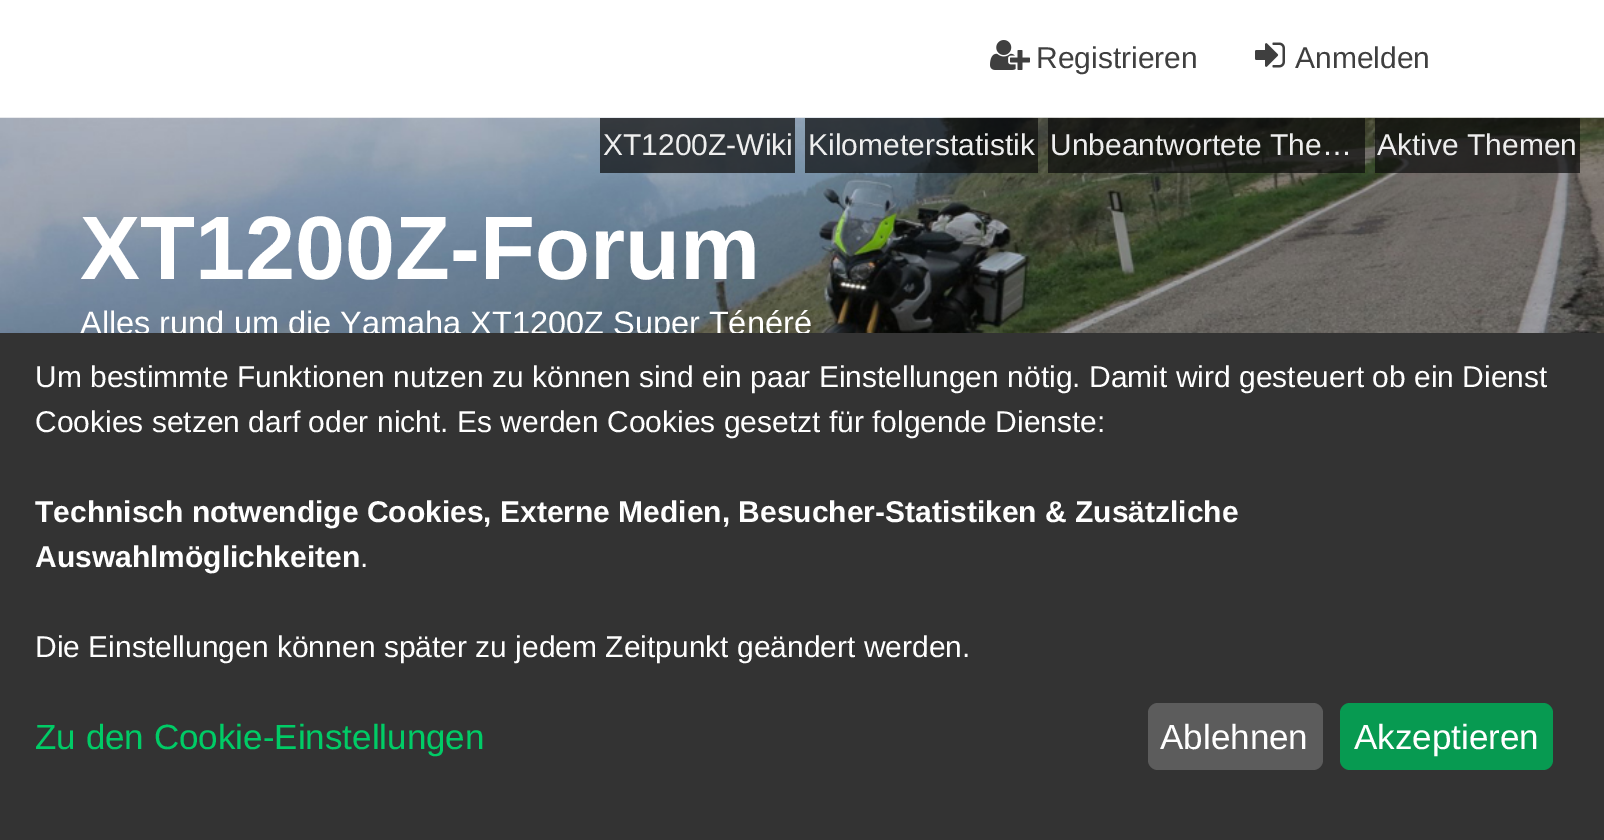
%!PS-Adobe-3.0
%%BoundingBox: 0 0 1604 840
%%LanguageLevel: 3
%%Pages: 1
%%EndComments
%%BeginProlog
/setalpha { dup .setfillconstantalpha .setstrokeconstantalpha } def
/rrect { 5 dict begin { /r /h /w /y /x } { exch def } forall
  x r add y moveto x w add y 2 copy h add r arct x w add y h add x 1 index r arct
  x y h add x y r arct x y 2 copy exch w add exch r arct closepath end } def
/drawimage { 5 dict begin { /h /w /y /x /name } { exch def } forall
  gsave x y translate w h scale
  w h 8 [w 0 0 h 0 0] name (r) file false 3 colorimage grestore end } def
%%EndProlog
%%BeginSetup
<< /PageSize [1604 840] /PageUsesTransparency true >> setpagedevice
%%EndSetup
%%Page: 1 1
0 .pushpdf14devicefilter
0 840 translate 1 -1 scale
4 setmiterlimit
1 setgray
0 0 1604 840 rectfill
(images/1.raw) 990 40 40 30 drawimage
(images/2.raw) 1255 42 30 26 drawimage
(images/3.raw) 0 117 1604 216 drawimage
0.7 setalpha
0.039 setgray
600 118 195 55 rectfill
805 118 233 55 rectfill
1048 118 317 55 rectfill
1375 118 205 55 rectfill
/LiberationSans-Regular [30 0 0 -30 0 0] selectfont
1 setalpha
0.247 setgray
1036 68 moveto (Registrieren) show
1295 68 moveto (Anmelden) show
0.933 setgray
603 155 moveto (XT1200Z-Wiki) show
808 155 moveto (Kilometerstatistik) show
1050 155 moveto (Unbeantwortete The…) show
1377 155 moveto (Aktive Themen) show
/LiberationSans-Bold [90 0 0 -90 0 0] selectfont
1 setgray
80 279 moveto (XT1200Z-Forum) show
/LiberationSans-Regular [32.5 0 0 -32.5 0 0] selectfont
80 334 moveto (Alles rund um die Yamaha XT1200Z Super Ténéré) show
0.2 setgray
0 333 1604 507 rectfill
/LiberationSans-Regular [30 0 0 -30 0 0] selectfont
1 setgray
35 387 moveto (Um bestimmte Funktionen nutzen zu können sind ein paar Einstellungen nötig. Damit wird gesteuert ob ein Dienst) show
35 432 moveto (Cookies setzen darf oder nicht. Es werden Cookies gesetzt für folgende Dienste:) show
/LiberationSans-Bold [30 0 0 -30 0 0] selectfont
35 522 moveto (Technisch notwendige Cookies, Externe Medien, Besucher-Statistiken & Zusätzliche) show
35 567 moveto (Auswahlmöglichkeiten) show
/LiberationSans-Regular [30 0 0 -30 0 0] selectfont
360 567 moveto (.) show
35 657 moveto (Die Einstellungen können später zu jedem Zeitpunkt geändert werden.) show
/LiberationSans-Regular [35 0 0 -35 0 0] selectfont
0 0.8 0.4 setrgbcolor
35 749 moveto (Zu den Cookie-Einstellungen) show
0.361 setgray
1148 703 175 67 10 rrect fill
1 setgray
1160 749 moveto (Ablehnen) show
0.027 0.604 0.318 setrgbcolor
1340 703 213 67 10 rrect fill
1 setgray
1354 749 moveto (Akzeptieren) show
.poppdf14devicefilter showpage
%%EOF
